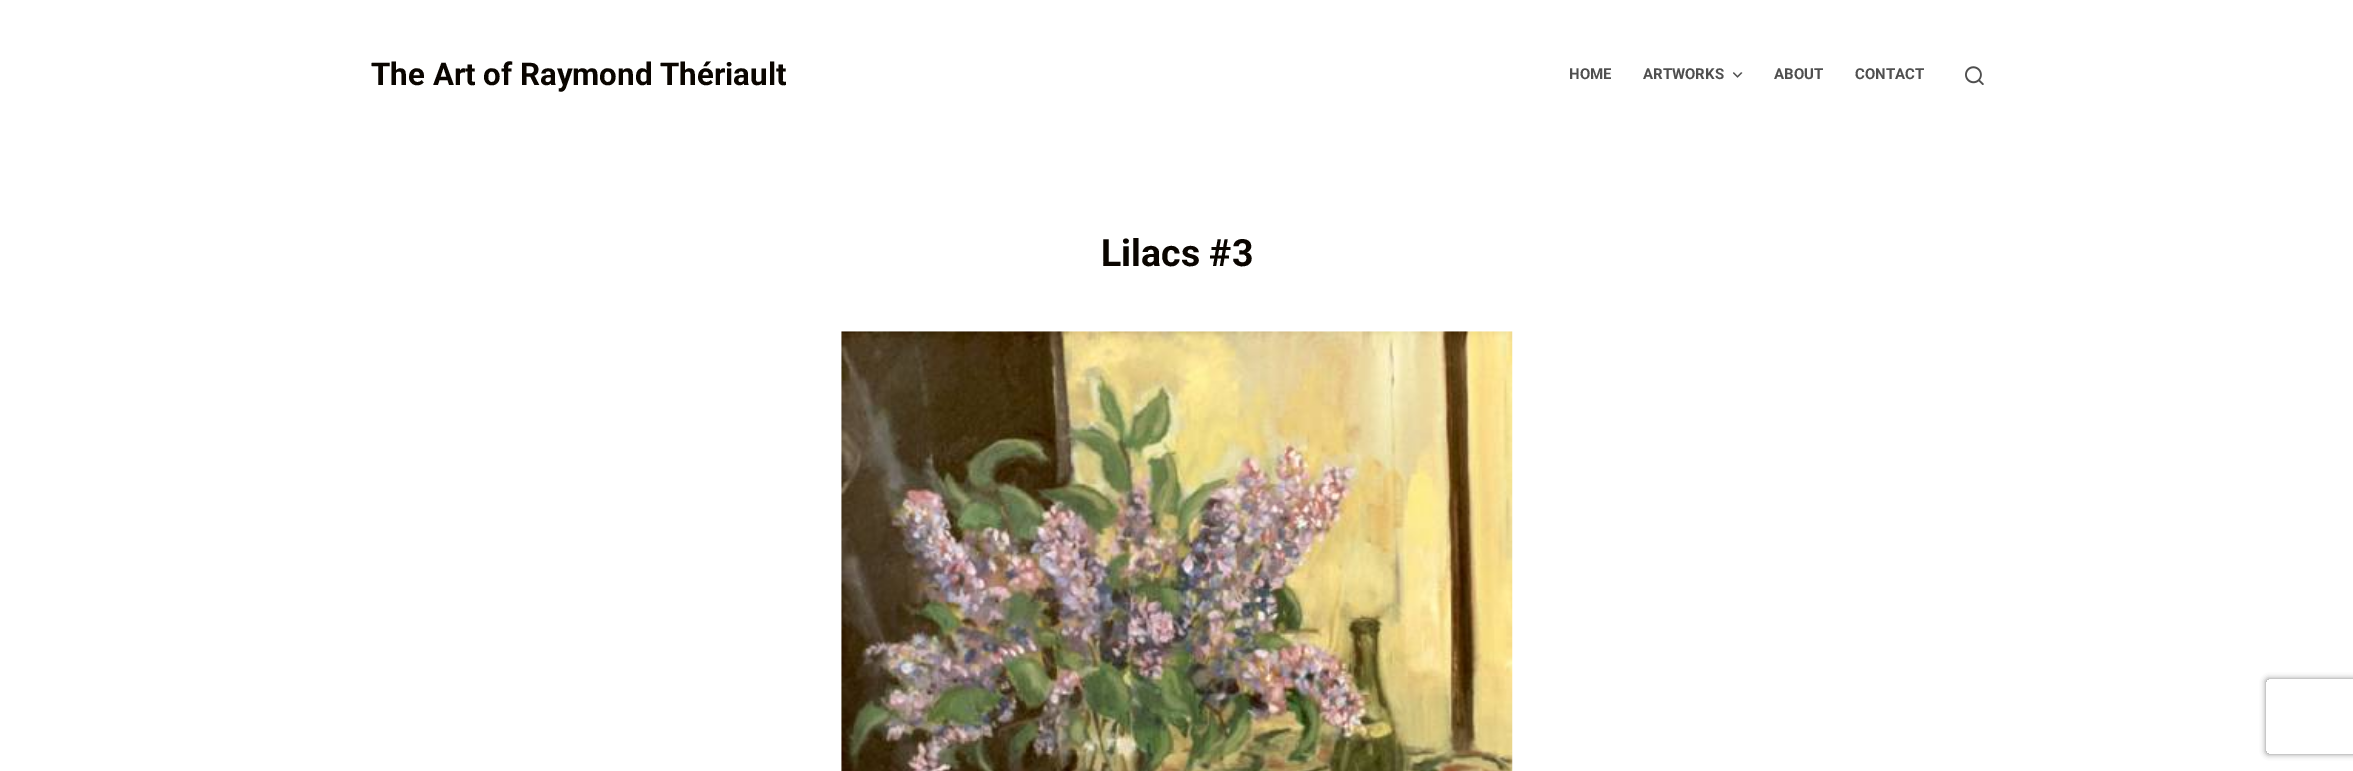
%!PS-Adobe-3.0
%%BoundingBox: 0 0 2353 771
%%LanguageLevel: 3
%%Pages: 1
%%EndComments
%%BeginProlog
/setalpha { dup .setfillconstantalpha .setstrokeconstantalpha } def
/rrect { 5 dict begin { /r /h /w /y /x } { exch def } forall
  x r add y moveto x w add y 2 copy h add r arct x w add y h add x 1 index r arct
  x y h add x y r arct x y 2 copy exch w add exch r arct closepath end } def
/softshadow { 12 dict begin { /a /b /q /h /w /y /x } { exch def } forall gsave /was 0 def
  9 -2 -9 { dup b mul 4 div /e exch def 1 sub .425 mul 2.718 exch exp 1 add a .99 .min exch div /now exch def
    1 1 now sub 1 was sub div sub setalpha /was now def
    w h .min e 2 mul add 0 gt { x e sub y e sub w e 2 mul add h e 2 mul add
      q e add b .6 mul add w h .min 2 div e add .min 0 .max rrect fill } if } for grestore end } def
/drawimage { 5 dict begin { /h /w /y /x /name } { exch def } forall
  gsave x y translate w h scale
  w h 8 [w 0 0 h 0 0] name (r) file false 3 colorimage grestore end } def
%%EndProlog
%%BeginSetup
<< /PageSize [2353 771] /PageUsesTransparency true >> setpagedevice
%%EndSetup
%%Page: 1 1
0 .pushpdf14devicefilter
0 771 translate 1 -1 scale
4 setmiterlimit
1 setgray
0 0 2353 771 rectfill
(images/1.raw) 1733 72 10 6 drawimage
(images/2.raw) 1965 66 19 19 drawimage
(images/3.raw) 841 331 672 440 drawimage
gsave
newpath 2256 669 moveto 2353 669 lineto 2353 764 lineto 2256 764 lineto closepath 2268.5 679 moveto 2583.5 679 lineto 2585 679 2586 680 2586 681.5 curveto 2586 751.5 lineto 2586 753 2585 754 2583.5 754 curveto 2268.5 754 lineto 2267 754 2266 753 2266 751.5 curveto 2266 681.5 lineto 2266 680 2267 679 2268.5 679 curveto closepath eoclip newpath
0.502 setgray
2266 679 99 75 2.5 3 1 softshadow
grestore
/Roboto-Bold [31.25 0 0 -31.25 0 0] selectfont
0.039 0.02 0 setrgbcolor
371 85 moveto (The Art of Raymond Thériault) show
/Roboto-Bold [15 0 0 -15 0 0] selectfont
0.31 setgray
1569 79 moveto (HOME) show
1643 79 moveto (ARTWORKS) show
1774 79 moveto (ABOUT) show
1855 79 moveto (CONTACT) show
/Roboto-Bold [37.5 0 0 -37.5 0 0] selectfont
0.039 0.02 0 setrgbcolor
1101 266 moveto (Lilacs #3) show
.poppdf14devicefilter showpage
%%EOF
